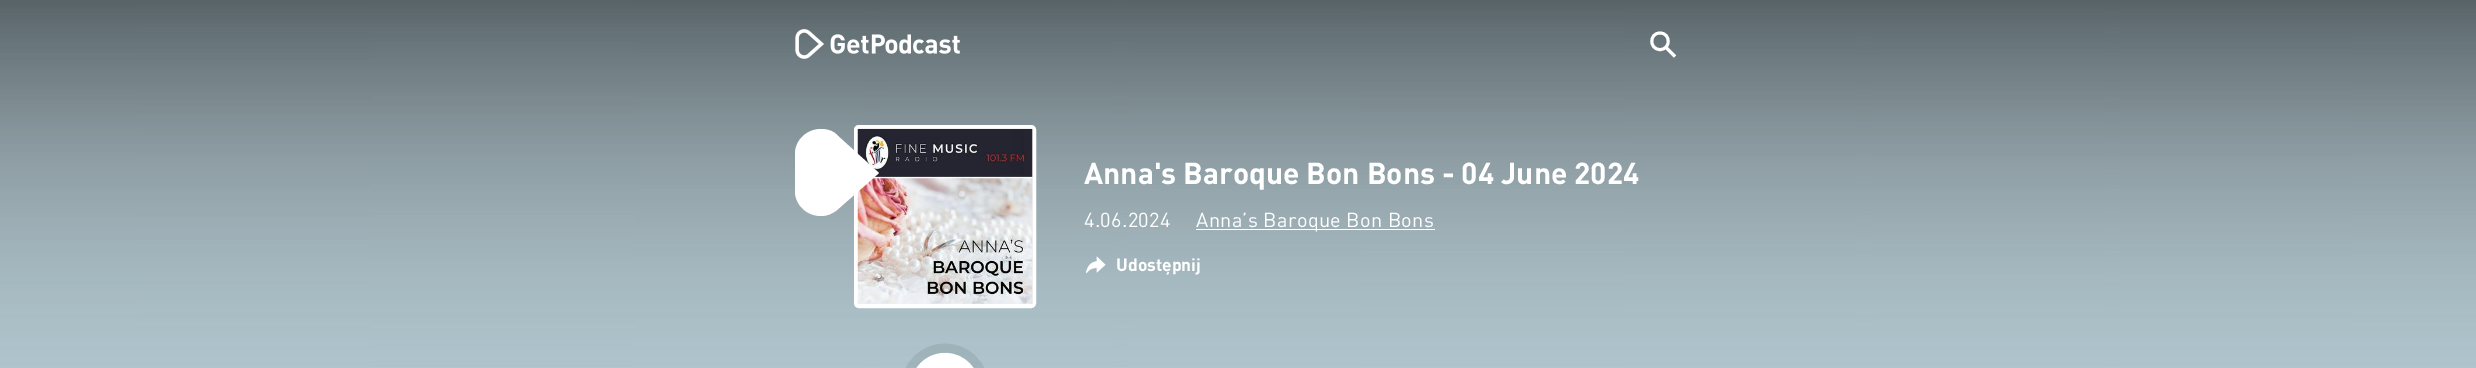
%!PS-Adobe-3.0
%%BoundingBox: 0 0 2476 368
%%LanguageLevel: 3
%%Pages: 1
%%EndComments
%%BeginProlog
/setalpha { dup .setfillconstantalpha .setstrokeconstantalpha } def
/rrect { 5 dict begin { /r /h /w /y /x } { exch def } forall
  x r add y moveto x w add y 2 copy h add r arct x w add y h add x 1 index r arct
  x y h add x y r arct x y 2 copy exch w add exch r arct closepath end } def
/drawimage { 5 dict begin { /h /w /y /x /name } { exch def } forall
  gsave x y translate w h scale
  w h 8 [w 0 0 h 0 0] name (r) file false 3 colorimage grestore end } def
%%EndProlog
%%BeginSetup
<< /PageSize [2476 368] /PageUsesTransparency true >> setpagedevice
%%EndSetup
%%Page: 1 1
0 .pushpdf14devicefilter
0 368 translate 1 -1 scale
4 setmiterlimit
0.682 0.776 0.812 setrgbcolor
0 0 2476 368 rectfill
(images/2.raw) 0 0 2476 367 drawimage
(images/1.raw) 795 29 165 30 drawimage
1 setgray
2.9 setlinewidth
newpath 1660 49.5 moveto 1649 49.5 1649 33 1660 33 curveto 1671 33 1671 49.5 1660 49.5 curveto closepath 1666 47.5 moveto 1675 56.5 lineto closepath stroke
4 setlinewidth
856 127 178 179 3 rrect stroke
0.941 setgray
858 129 175 175 rectfill
(images/3.raw) 857 128 176 176 drawimage
1 setgray
newpath 879 173 moveto 837 210 lineto 832 214 827 216 821 216 curveto 807 216 795 205 795 191 curveto 795 154 lineto 795 140 807 129 821 129 curveto 828 129 834 131 838 136 curveto closepath fill
1196 229 239 1 rectfill
(images/4.raw) 1086 256 20 17 drawimage
newpath 945 387.5 34.5 0 360 arc closepath fill
0.08 setalpha
0 setgray
8.8 setlinewidth
newpath 945 387.5 39.5 0 360 arc closepath stroke
/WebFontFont-Bold [30 0 0 -30 0 0] selectfont
1 setalpha
1 setgray
1084 184 moveto (Anna's Baroque Bon Bons - 04 June 2024) show
/WebFontFont-Regular [20 0 0 -20 0 0] selectfont
1084 227 moveto 0.3 0 (4.06.2024) ashow
1196 227 moveto 0.3 0 (Anna’s Baroque Bon Bons) ashow
/WebFontFont-Bold [17.5 0 0 -17.5 0 0] selectfont
1116 271 moveto (Udostępnij) show
.poppdf14devicefilter showpage
%%EOF
